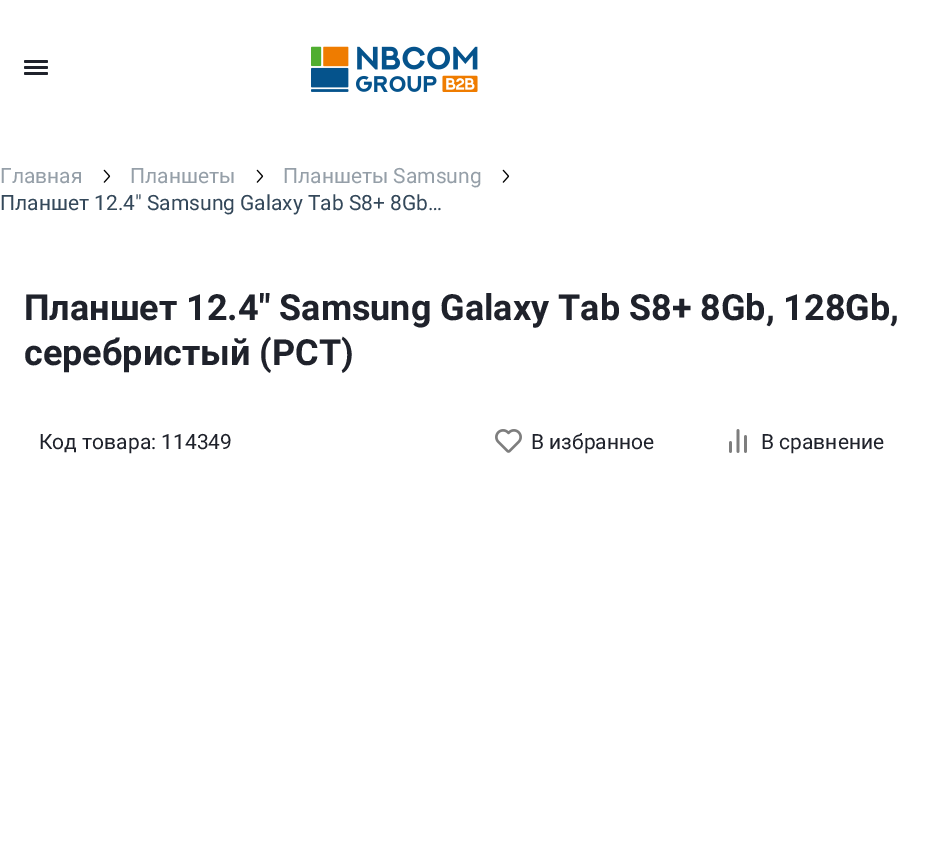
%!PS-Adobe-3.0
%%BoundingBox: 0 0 940 863
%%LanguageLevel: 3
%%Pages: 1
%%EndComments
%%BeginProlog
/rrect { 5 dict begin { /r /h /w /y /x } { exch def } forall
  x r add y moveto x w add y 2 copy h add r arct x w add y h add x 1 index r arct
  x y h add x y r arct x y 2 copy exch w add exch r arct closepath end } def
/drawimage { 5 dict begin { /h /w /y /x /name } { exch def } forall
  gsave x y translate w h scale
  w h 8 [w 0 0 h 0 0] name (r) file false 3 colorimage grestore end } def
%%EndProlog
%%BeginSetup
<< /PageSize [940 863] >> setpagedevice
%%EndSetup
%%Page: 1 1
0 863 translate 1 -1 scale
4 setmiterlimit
1 setgray
0 0 940 863 rectfill
0.122 0.133 0.169 setrgbcolor
24 66 24 3 1.5 rrect fill
24 60 24 3 1.5 rrect fill
24 72 24 3 1.5 rrect fill
(images/1.raw) 311 46 167 46 drawimage
(images/2.raw) 103 169 8 14 drawimage
(images/2.raw) 256 169 8 14 drawimage
(images/2.raw) 502 169 8 14 drawimage
(images/3.raw) 495 429 27 24 drawimage
(images/4.raw) 729 429 18 24 drawimage
/Roboto-Regular [21 0 0 -21 0 0] selectfont
0.584 0.624 0.659 setrgbcolor
0 183 moveto (Главная) show
130 183 moveto (Планшеты) show
283 183 moveto (Планшеты Samsung) show
0.204 0.282 0.353 setrgbcolor
0 210 moveto (Планшет 12.4″ Samsung Galaxy Tab S8+ 8Gb…) show
/Roboto-Bold [36 0 0 -36 0 0] selectfont
0.122 0.133 0.169 setrgbcolor
24 320 moveto (Планшет 12.4″ Samsung Galaxy Tab S8+ 8Gb, 128Gb,) show
24 365 moveto (серебристый \(РСТ\)) show
/Roboto-Regular [21 0 0 -21 0 0] selectfont
39 449 moveto (Код товара: 114349) show
531 449 moveto (В избранное) show
761 449 moveto (В сравнение) show
showpage
%%EOF
